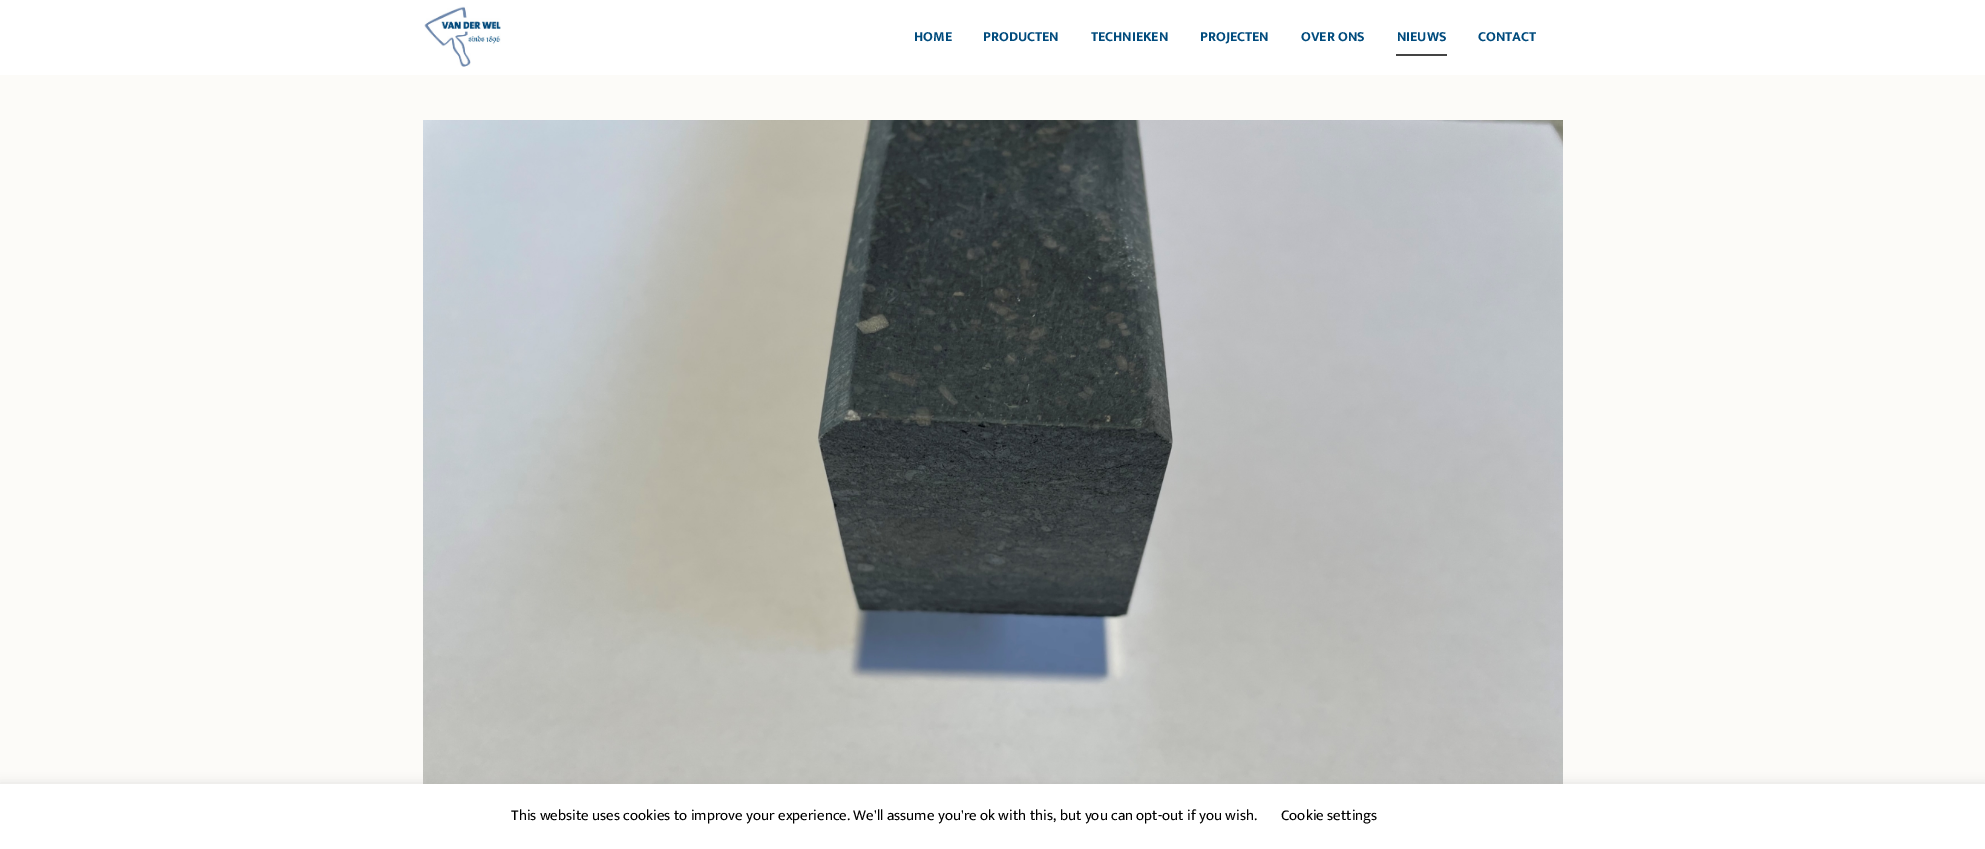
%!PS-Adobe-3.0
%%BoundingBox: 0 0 1985 849
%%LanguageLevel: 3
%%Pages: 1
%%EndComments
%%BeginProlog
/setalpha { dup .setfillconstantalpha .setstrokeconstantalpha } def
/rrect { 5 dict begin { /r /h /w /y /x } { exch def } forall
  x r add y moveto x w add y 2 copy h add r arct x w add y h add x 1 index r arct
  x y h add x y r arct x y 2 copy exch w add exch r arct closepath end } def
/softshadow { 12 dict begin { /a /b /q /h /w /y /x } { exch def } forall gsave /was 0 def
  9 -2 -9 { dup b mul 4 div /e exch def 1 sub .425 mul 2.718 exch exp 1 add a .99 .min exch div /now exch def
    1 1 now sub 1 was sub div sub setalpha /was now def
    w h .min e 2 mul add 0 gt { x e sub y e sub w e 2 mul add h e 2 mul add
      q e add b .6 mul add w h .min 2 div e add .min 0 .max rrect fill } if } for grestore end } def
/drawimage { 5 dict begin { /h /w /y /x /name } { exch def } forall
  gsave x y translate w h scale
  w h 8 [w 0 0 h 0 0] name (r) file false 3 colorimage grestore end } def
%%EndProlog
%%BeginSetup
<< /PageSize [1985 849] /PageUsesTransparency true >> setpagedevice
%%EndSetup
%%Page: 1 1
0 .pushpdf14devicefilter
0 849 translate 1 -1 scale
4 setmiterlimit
0.988 0.984 0.973 setrgbcolor
0 0 1985 849 rectfill
1 setgray
0 0 1985 75 rectfill
(images/1.raw) 424 6 77 61 drawimage
0.267 setgray
1396 54 51 2 rectfill
(images/2.raw) 423 120 1140 664 drawimage
0.675 0.671 0.671 setrgbcolor
0 783 1985 65 0 5 0.3 softshadow
1 setgray
0 784 1985 65 rectfill
/Mukta-Bold [14 0 0 -14 0 0] selectfont
0 0.294 0.49 setrgbcolor
914 41 moveto (HOME) show
983 41 moveto (PRODUCTEN) show
1091 41 moveto (TECHNIEKEN) show
1200 41 moveto (PROJECTEN) show
1301 41 moveto (OVER ONS) show
1397 41 moveto (NIEUWS) show
1478 41 moveto (CONTACT) show
/Mukta-Regular [15 0 0 -15 0 0] selectfont
0 setgray
511 820 moveto (This website uses cookies to improve your experience. We'll assume you're ok with this, but you can opt-out if you wish.) show
1281 820 moveto (Cookie settings) show
.poppdf14devicefilter showpage
%%EOF
